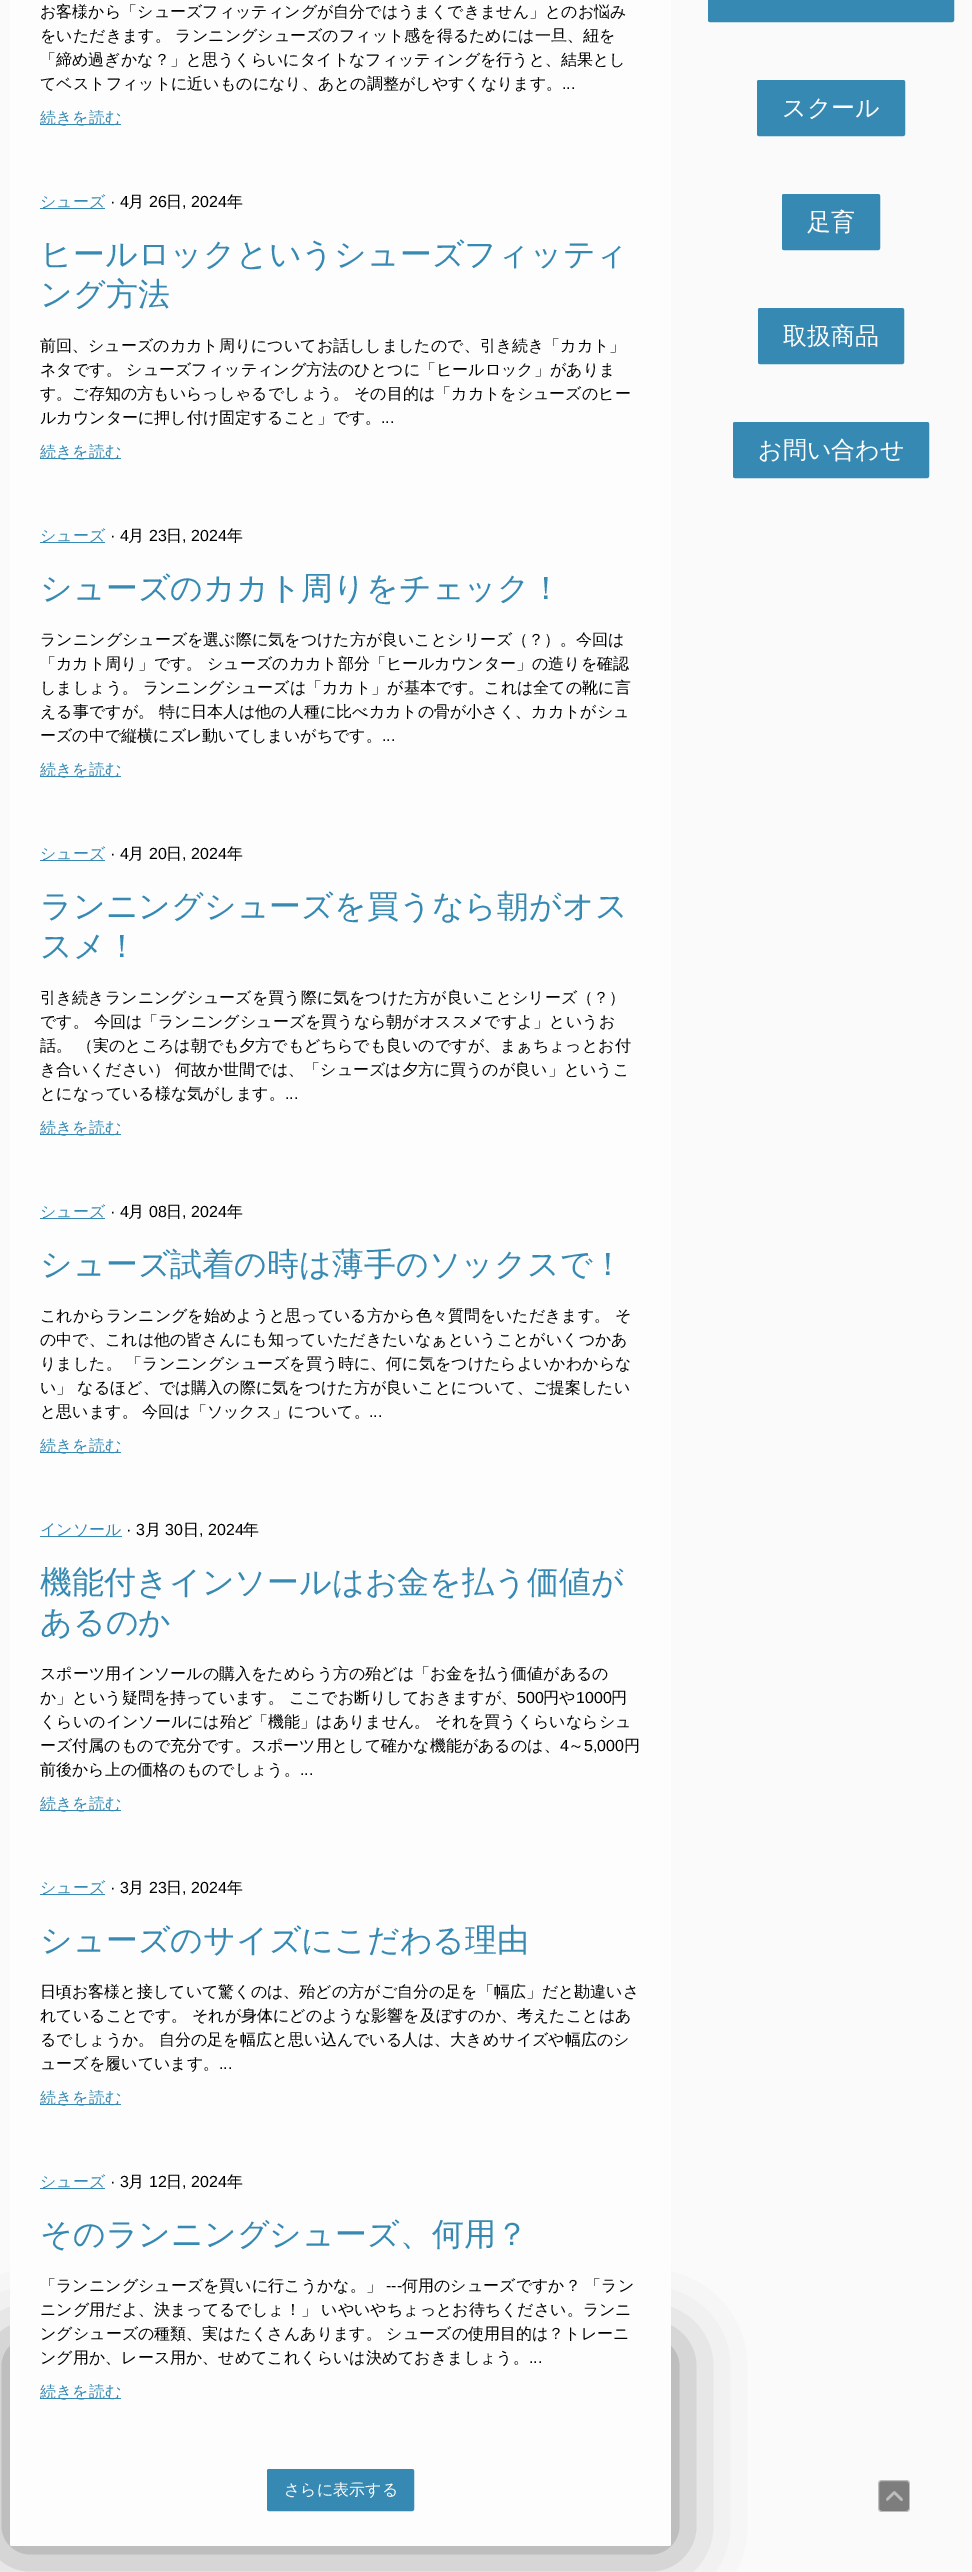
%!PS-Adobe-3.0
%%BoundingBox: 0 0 972 2572
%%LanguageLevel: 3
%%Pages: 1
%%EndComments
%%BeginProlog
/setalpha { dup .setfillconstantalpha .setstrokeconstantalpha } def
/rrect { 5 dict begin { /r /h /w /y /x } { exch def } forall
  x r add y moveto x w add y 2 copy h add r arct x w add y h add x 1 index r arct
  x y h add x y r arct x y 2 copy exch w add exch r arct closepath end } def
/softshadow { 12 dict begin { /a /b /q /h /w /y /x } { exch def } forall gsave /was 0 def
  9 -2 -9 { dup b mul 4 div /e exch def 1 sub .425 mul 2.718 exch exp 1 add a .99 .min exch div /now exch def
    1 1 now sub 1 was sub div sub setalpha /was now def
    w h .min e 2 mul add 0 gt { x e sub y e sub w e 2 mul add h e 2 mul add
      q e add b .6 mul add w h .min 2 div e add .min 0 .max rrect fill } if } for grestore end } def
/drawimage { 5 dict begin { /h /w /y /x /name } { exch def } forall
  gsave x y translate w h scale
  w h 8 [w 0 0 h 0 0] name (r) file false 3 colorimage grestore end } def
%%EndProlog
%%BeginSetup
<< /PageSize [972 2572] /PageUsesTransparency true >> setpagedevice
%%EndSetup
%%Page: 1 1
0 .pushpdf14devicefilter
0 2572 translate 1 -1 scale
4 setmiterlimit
0.98 setgray
0 0 972 2572 rectfill
0.2 setgray
10 2346 661 200 0 34 0.6 softshadow
0.992 setgray
10 -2 661 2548 2 rrect fill
0.212 0.537 0.698 setrgbcolor
40 124 81 1 rectfill
40 208 65 1 rectfill
40 458 81 1 rectfill
40 542 65 1 rectfill
40 776 81 1 rectfill
40 860 65 1 rectfill
40 1134 81 1 rectfill
40 1218 65 1 rectfill
40 1452 81 1 rectfill
40 1536 82 1 rectfill
40 1810 81 1 rectfill
40 1894 65 1 rectfill
40 2104 81 1 rectfill
40 2188 65 1 rectfill
40 2398 81 1 rectfill
267.5 2469.5 146 41 1.5 rrect gsave fill grestore
stroke
708.5 -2.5 245 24 1.5 rrect gsave fill grestore
stroke
757.5 80.5 147 55 1.5 rrect gsave fill grestore
stroke
782.5 194.5 97 55 1.5 rrect gsave fill grestore
stroke
758.5 308.5 145 55 1.5 rrect gsave fill grestore
stroke
733.5 422.5 195 55 1.5 rrect gsave fill grestore
stroke
0.49 setgray
878 2480 32 32 4 rrect fill
0.5 setalpha
1 setgray
878.5 2480.5 31 31 3.5 rrect stroke
1 setalpha
(images/1.raw) 886 2491 17 10 drawimage
/WenQuanYiZenHei-Medium [16 0 0 -16 0 0] selectfont
0 setgray
40 17 moveto (お客様から「シューズフィッティングが自分ではうまくできません」とのお悩み) show
40 41 moveto (をいただきます。 ランニングシューズのフィット感を得るためには一旦、紐を) show
40 65 moveto (「締め過ぎかな？」と思うくらいにタイトなフィッティングを行うと、結果とし) show
40 89 moveto (てベストフィットに近いものになり、あとの調整がしやすくなります。) show
/LiberationSans-Regular [16 0 0 -16 0 0] selectfont
562 89 moveto (...) show
/WenQuanYiZenHei-Medium [16 0 0 -16 0 0] selectfont
0.212 0.537 0.698 setrgbcolor
40 123 moveto (続きを読む) show
40 207 moveto (シューズ) show
/LiberationSans-Regular [16 0 0 -16 0 0] selectfont
0 setgray
110 207 moveto (· 4) show
/WenQuanYiZenHei-Medium [16 0 0 -16 0 0] selectfont
128 207 moveto (月) show
/LiberationSans-Regular [16 0 0 -16 0 0] selectfont
149 207 moveto (26) show
/WenQuanYiZenHei-Medium [16 0 0 -16 0 0] selectfont
166 207 moveto (日) show
/LiberationSans-Regular [16 0 0 -16 0 0] selectfont
182 207 moveto (, 2024) show
/WenQuanYiZenHei-Medium [16 0 0 -16 0 0] selectfont
227 207 moveto (年) show
/WenQuanYiZenHei-Medium [32 0 0 -32 0 0] selectfont
0.212 0.537 0.698 setrgbcolor
40 265 moveto (ヒールロックというシューズフィッティ) show
40 305 moveto (ング方法) show
/WenQuanYiZenHei-Medium [16 0 0 -16 0 0] selectfont
0 setgray
40 351 moveto (前回、シューズのカカト周りについてお話ししましたので、引き続き「カカト」) show
40 375 moveto (ネタです。 シューズフィッティング方法のひとつに「ヒールロック」がありま) show
40 399 moveto (す。ご存知の方もいらっしゃるでしょう。 その目的は「カカトをシューズのヒー) show
40 423 moveto (ルカウンターに押し付け固定すること」です。) show
/LiberationSans-Regular [16 0 0 -16 0 0] selectfont
381 423 moveto (...) show
/WenQuanYiZenHei-Medium [16 0 0 -16 0 0] selectfont
0.212 0.537 0.698 setrgbcolor
40 457 moveto (続きを読む) show
40 541 moveto (シューズ) show
/LiberationSans-Regular [16 0 0 -16 0 0] selectfont
0 setgray
110 541 moveto (· 4) show
/WenQuanYiZenHei-Medium [16 0 0 -16 0 0] selectfont
128 541 moveto (月) show
/LiberationSans-Regular [16 0 0 -16 0 0] selectfont
149 541 moveto (23) show
/WenQuanYiZenHei-Medium [16 0 0 -16 0 0] selectfont
166 541 moveto (日) show
/LiberationSans-Regular [16 0 0 -16 0 0] selectfont
182 541 moveto (, 2024) show
/WenQuanYiZenHei-Medium [16 0 0 -16 0 0] selectfont
227 541 moveto (年) show
/WenQuanYiZenHei-Medium [32 0 0 -32 0 0] selectfont
0.212 0.537 0.698 setrgbcolor
40 599 moveto (シューズのカカト周りをチェック！) show
/WenQuanYiZenHei-Medium [16 0 0 -16 0 0] selectfont
0 setgray
40 645 moveto (ランニングシューズを選ぶ際に気をつけた方が良いことシリーズ（？）。今回は) show
40 669 moveto (「カカト周り」です。 シューズのカカト部分「ヒールカウンター」の造りを確認) show
40 693 moveto (しましょう。 ランニングシューズは「カカト」が基本です。これは全ての靴に言) show
40 717 moveto (える事ですが。 特に日本人は他の人種に比べカカトの骨が小さく、カカトがシュ) show
40 741 moveto (ーズの中で縦横にズレ動いてしまいがちです。) show
/LiberationSans-Regular [16 0 0 -16 0 0] selectfont
382 741 moveto (...) show
/WenQuanYiZenHei-Medium [16 0 0 -16 0 0] selectfont
0.212 0.537 0.698 setrgbcolor
40 775 moveto (続きを読む) show
40 859 moveto (シューズ) show
/LiberationSans-Regular [16 0 0 -16 0 0] selectfont
0 setgray
110 859 moveto (· 4) show
/WenQuanYiZenHei-Medium [16 0 0 -16 0 0] selectfont
128 859 moveto (月) show
/LiberationSans-Regular [16 0 0 -16 0 0] selectfont
149 859 moveto (20) show
/WenQuanYiZenHei-Medium [16 0 0 -16 0 0] selectfont
166 859 moveto (日) show
/LiberationSans-Regular [16 0 0 -16 0 0] selectfont
182 859 moveto (, 2024) show
/WenQuanYiZenHei-Medium [16 0 0 -16 0 0] selectfont
227 859 moveto (年) show
/WenQuanYiZenHei-Medium [32 0 0 -32 0 0] selectfont
0.212 0.537 0.698 setrgbcolor
40 917 moveto (ランニングシューズを買うなら朝がオス) show
40 957 moveto (スメ！) show
/WenQuanYiZenHei-Medium [16 0 0 -16 0 0] selectfont
0 setgray
40 1003 moveto (引き続きランニングシューズを買う際に気をつけた方が良いことシリーズ（？）) show
40 1027 moveto (です。 今回は「ランニングシューズを買うなら朝がオススメですよ」というお) show
40 1051 moveto (話。 （実のところは朝でも夕方でもどちらでも良いのですが、まぁちょっとお付) show
40 1075 moveto (き合いください） 何故か世間では、「シューズは夕方に買うのが良い」というこ) show
40 1099 moveto (とになっている様な気がします。) show
/LiberationSans-Regular [16 0 0 -16 0 0] selectfont
285 1099 moveto (...) show
/WenQuanYiZenHei-Medium [16 0 0 -16 0 0] selectfont
0.212 0.537 0.698 setrgbcolor
40 1133 moveto (続きを読む) show
40 1217 moveto (シューズ) show
/LiberationSans-Regular [16 0 0 -16 0 0] selectfont
0 setgray
110 1217 moveto (· 4) show
/WenQuanYiZenHei-Medium [16 0 0 -16 0 0] selectfont
128 1217 moveto (月) show
/LiberationSans-Regular [16 0 0 -16 0 0] selectfont
149 1217 moveto (08) show
/WenQuanYiZenHei-Medium [16 0 0 -16 0 0] selectfont
166 1217 moveto (日) show
/LiberationSans-Regular [16 0 0 -16 0 0] selectfont
182 1217 moveto (, 2024) show
/WenQuanYiZenHei-Medium [16 0 0 -16 0 0] selectfont
227 1217 moveto (年) show
/WenQuanYiZenHei-Medium [32 0 0 -32 0 0] selectfont
0.212 0.537 0.698 setrgbcolor
40 1275 moveto (シューズ試着の時は薄手のソックスで！) show
/WenQuanYiZenHei-Medium [16 0 0 -16 0 0] selectfont
0 setgray
40 1321 moveto (これからランニングを始めようと思っている方から色々質問をいただきます。 そ) show
40 1345 moveto (の中で、これは他の皆さんにも知っていただきたいなぁということがいくつかあ) show
40 1369 moveto (りました。 「ランニングシューズを買う時に、何に気をつけたらよいかわからな) show
40 1393 moveto (い」 なるほど、では購入の際に気をつけた方が良いことについて、ご提案したい) show
40 1417 moveto (と思います。 今回は「ソックス」について。) show
/LiberationSans-Regular [16 0 0 -16 0 0] selectfont
369 1417 moveto (...) show
/WenQuanYiZenHei-Medium [16 0 0 -16 0 0] selectfont
0.212 0.537 0.698 setrgbcolor
40 1451 moveto (続きを読む) show
40 1535 moveto (インソール) show
/LiberationSans-Regular [16 0 0 -16 0 0] selectfont
0 setgray
126 1535 moveto (· 3) show
/WenQuanYiZenHei-Medium [16 0 0 -16 0 0] selectfont
145 1535 moveto (月) show
/LiberationSans-Regular [16 0 0 -16 0 0] selectfont
165 1535 moveto (30) show
/WenQuanYiZenHei-Medium [16 0 0 -16 0 0] selectfont
183 1535 moveto (日) show
/LiberationSans-Regular [16 0 0 -16 0 0] selectfont
199 1535 moveto (, 2024) show
/WenQuanYiZenHei-Medium [16 0 0 -16 0 0] selectfont
243 1535 moveto (年) show
/WenQuanYiZenHei-Medium [32 0 0 -32 0 0] selectfont
0.212 0.537 0.698 setrgbcolor
40 1593 moveto (機能付きインソールはお金を払う価値が) show
40 1633 moveto (あるのか) show
/WenQuanYiZenHei-Medium [16 0 0 -16 0 0] selectfont
0 setgray
40 1679 moveto (スポーツ用インソールの購入をためらう方の殆どは「お金を払う価値があるの) show
40 1703 moveto (か」という疑問を持っています。 ここでお断りしておきますが、) show
/LiberationSans-Regular [16 0 0 -16 0 0] selectfont
517 1703 moveto (500) show
/WenQuanYiZenHei-Medium [16 0 0 -16 0 0] selectfont
543 1703 moveto (円や) show
/LiberationSans-Regular [16 0 0 -16 0 0] selectfont
576 1703 moveto (1000) show
/WenQuanYiZenHei-Medium [16 0 0 -16 0 0] selectfont
611 1703 moveto (円) show
40 1727 moveto (くらいのインソールには殆ど「機能」はありません。 それを買うくらいならシュ) show
40 1751 moveto (ーズ付属のもので充分です。スポーツ用として確かな機能があるのは、) show
/LiberationSans-Regular [16 0 0 -16 0 0] selectfont
560 1751 moveto (4) show
/WenQuanYiZenHei-Medium [16 0 0 -16 0 0] selectfont
568 1751 moveto (～) show
/LiberationSans-Regular [16 0 0 -16 0 0] selectfont
584 1751 moveto (5,000) show
/WenQuanYiZenHei-Medium [16 0 0 -16 0 0] selectfont
624 1751 moveto (円) show
40 1775 moveto (前後から上の価格のものでしょう。) show
/LiberationSans-Regular [16 0 0 -16 0 0] selectfont
300 1775 moveto (...) show
/WenQuanYiZenHei-Medium [16 0 0 -16 0 0] selectfont
0.212 0.537 0.698 setrgbcolor
40 1809 moveto (続きを読む) show
40 1893 moveto (シューズ) show
/LiberationSans-Regular [16 0 0 -16 0 0] selectfont
0 setgray
110 1893 moveto (· 3) show
/WenQuanYiZenHei-Medium [16 0 0 -16 0 0] selectfont
128 1893 moveto (月) show
/LiberationSans-Regular [16 0 0 -16 0 0] selectfont
149 1893 moveto (23) show
/WenQuanYiZenHei-Medium [16 0 0 -16 0 0] selectfont
166 1893 moveto (日) show
/LiberationSans-Regular [16 0 0 -16 0 0] selectfont
182 1893 moveto (, 2024) show
/WenQuanYiZenHei-Medium [16 0 0 -16 0 0] selectfont
227 1893 moveto (年) show
/WenQuanYiZenHei-Medium [32 0 0 -32 0 0] selectfont
0.212 0.537 0.698 setrgbcolor
40 1951 moveto (シューズのサイズにこだわる理由) show
/WenQuanYiZenHei-Medium [16 0 0 -16 0 0] selectfont
0 setgray
40 1997 moveto (日頃お客様と接していて驚くのは、殆どの方がご自分の足を「幅広」だと勘違いさ) show
40 2021 moveto (れていることです。 それが身体にどのような影響を及ぼすのか、考えたことはあ) show
40 2045 moveto (るでしょうか。 自分の足を幅広と思い込んでいる人は、大きめサイズや幅広のシ) show
40 2069 moveto (ューズを履いています。) show
/LiberationSans-Regular [16 0 0 -16 0 0] selectfont
219 2069 moveto (...) show
/WenQuanYiZenHei-Medium [16 0 0 -16 0 0] selectfont
0.212 0.537 0.698 setrgbcolor
40 2103 moveto (続きを読む) show
40 2187 moveto (シューズ) show
/LiberationSans-Regular [16 0 0 -16 0 0] selectfont
0 setgray
110 2187 moveto (· 3) show
/WenQuanYiZenHei-Medium [16 0 0 -16 0 0] selectfont
128 2187 moveto (月) show
/LiberationSans-Regular [16 0 0 -16 0 0] selectfont
149 2187 moveto (12) show
/WenQuanYiZenHei-Medium [16 0 0 -16 0 0] selectfont
166 2187 moveto (日) show
/LiberationSans-Regular [16 0 0 -16 0 0] selectfont
182 2187 moveto (, 2024) show
/WenQuanYiZenHei-Medium [16 0 0 -16 0 0] selectfont
227 2187 moveto (年) show
/WenQuanYiZenHei-Medium [32 0 0 -32 0 0] selectfont
0.212 0.537 0.698 setrgbcolor
40 2245 moveto (そのランニングシューズ、何用？) show
/WenQuanYiZenHei-Medium [16 0 0 -16 0 0] selectfont
0 setgray
40 2291 moveto (「ランニングシューズを買いに行こうかな。」) show
/LiberationSans-Regular [16 0 0 -16 0 0] selectfont
386 2291 moveto (---) show
/WenQuanYiZenHei-Medium [16 0 0 -16 0 0] selectfont
402 2291 moveto (何用のシューズですか？ 「ラン) show
40 2315 moveto (ニング用だよ、決まってるでしょ！」 いやいやちょっとお待ちください。ランニ) show
40 2339 moveto (ングシューズの種類、実はたくさんあります。 シューズの使用目的は？トレーニ) show
40 2363 moveto (ング用か、レース用か、せめてこれくらいは決めておきましょう。) show
/LiberationSans-Regular [16 0 0 -16 0 0] selectfont
529 2363 moveto (...) show
/WenQuanYiZenHei-Medium [16 0 0 -16 0 0] selectfont
0.212 0.537 0.698 setrgbcolor
40 2397 moveto (続きを読む) show
0.992 setgray
284 2495 moveto (さらに表示する) show
/WenQuanYiZenHei-Medium [24 0 0 -24 0 0] selectfont
782 116 moveto (スクール) show
807 230 moveto (足育) show
783 344 moveto (取扱商品) show
758 458 moveto (お問い合わせ) show
.poppdf14devicefilter showpage
%%EOF
